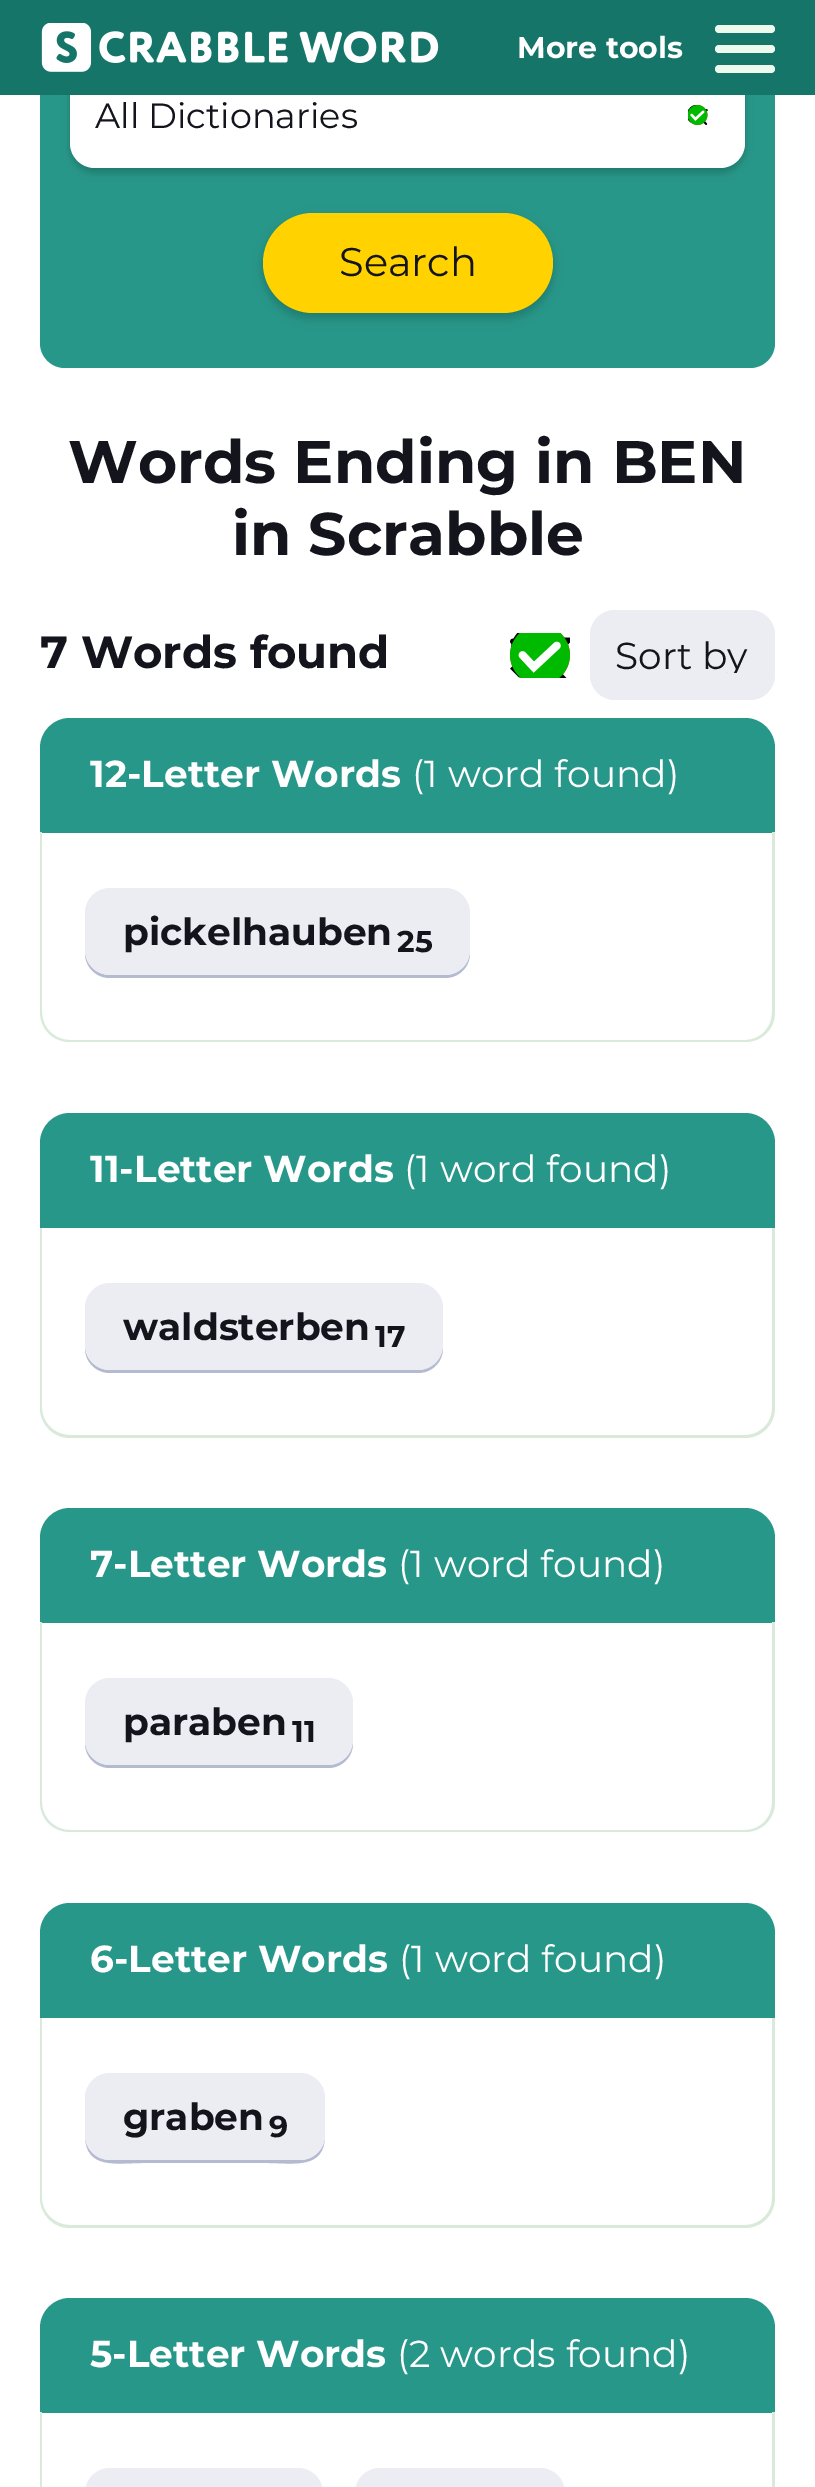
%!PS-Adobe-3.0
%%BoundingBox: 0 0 815 2487
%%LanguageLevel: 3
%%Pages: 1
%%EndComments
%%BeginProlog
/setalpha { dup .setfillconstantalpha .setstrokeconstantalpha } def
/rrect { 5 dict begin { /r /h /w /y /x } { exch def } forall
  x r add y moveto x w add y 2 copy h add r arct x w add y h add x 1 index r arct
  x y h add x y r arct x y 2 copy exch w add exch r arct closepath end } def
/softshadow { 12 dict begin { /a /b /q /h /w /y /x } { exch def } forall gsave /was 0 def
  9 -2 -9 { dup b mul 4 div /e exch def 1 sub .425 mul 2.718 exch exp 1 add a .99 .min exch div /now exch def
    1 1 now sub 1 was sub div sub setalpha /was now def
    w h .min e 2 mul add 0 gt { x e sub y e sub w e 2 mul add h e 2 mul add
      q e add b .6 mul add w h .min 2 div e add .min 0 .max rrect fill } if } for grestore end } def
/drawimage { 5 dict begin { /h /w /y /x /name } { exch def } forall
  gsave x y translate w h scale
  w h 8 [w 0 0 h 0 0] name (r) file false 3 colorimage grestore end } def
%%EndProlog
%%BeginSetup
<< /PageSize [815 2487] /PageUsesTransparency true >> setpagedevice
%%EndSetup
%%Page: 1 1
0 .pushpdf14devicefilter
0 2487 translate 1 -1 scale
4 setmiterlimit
1 setgray
0 0 815 2487 rectfill
0.153 0.592 0.537 setrgbcolor
40 -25 735 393 25 rrect fill
0 setgray
70 68 675 105 25 4 0.2 softshadow
1 setgray
70 63 675 105 25 rrect fill
0.082 0.459 0.412 setrgbcolor
0 0 815 95 rectfill
(images/1.raw) 41 23 398 49 drawimage
0.929 0.98 0.933 setrgbcolor
715 25 60 8 4 rrect fill
715 45 60 8 4 rrect fill
715 65 60 8 4 rrect fill
(images/2.raw) 688 105 20 20 drawimage
0 setgray
263 218 290 100 50 5 0.2 softshadow
1 0.824 0 setrgbcolor
263 213 290 100 50 rrect fill
0.922 0.929 0.953 setrgbcolor
590 610 185 90 25 rrect fill
(images/3.raw) 510 633 60 45 drawimage
0.153 0.592 0.537 setrgbcolor
newpath 70 718 moveto 745 718 lineto 761.5 718 775 731.5 775 748 curveto 775 833 lineto 40 833 lineto 40 748 lineto 40 731.5 53.5 718 70 718 curveto closepath fill
0.851 0.918 0.855 setrgbcolor
newpath 40 832 moveto 775 832 lineto 775 1012 lineto 775 1029 762 1042 745 1042 curveto 70 1042 lineto 53 1042 40 1029 40 1012 curveto closepath 42 832 moveto 772 832 lineto 772 1012 lineto 772 1028 760 1040 745 1040 curveto 70 1040 lineto 55 1040 42 1028 42 1012 curveto closepath eofill
0.706 0.733 0.82 setrgbcolor
newpath 85 950 moveto 85 953 lineto 85 967 96 978 110 978 curveto 445 978 lineto 459 978 470 967 470 953 curveto 470 950 lineto 470 964 459 975 445 975 curveto 110 975 lineto 96 975 85 964 85 950 curveto closepath fill
0.922 0.929 0.953 setrgbcolor
85 888 385 87 25 rrect fill
0.153 0.592 0.537 setrgbcolor
newpath 70 1113 moveto 745 1113 lineto 761.5 1113 775 1126.5 775 1143 curveto 775 1228 lineto 40 1228 lineto 40 1143 lineto 40 1126.5 53.5 1113 70 1113 curveto closepath fill
0.851 0.918 0.855 setrgbcolor
newpath 40 1228 moveto 775 1228 lineto 775 1408 lineto 775 1424 762 1438 745 1438 curveto 70 1438 lineto 53 1438 40 1424 40 1408 curveto closepath 42 1228 moveto 772 1228 lineto 772 1408 lineto 772 1423 760 1435 745 1435 curveto 70 1435 lineto 55 1435 42 1423 42 1408 curveto closepath eofill
0.706 0.733 0.82 setrgbcolor
newpath 85 1345 moveto 85 1348 lineto 85 1362 96 1373 110 1373 curveto 418 1373 lineto 432 1373 443 1362 443 1348 curveto 443 1310 lineto 442 1304 lineto 442 1345 lineto 442 1359 431 1370 418 1370 curveto 110 1370 lineto 96 1370 85 1359 85 1345 curveto closepath fill
0.922 0.929 0.953 setrgbcolor
85 1283 358 87 25 rrect fill
0.153 0.592 0.537 setrgbcolor
newpath 70 1508 moveto 745 1508 lineto 761.5 1508 775 1521.5 775 1538 curveto 775 1623 lineto 40 1623 lineto 40 1538 lineto 40 1521.5 53.5 1508 70 1508 curveto closepath fill
0.851 0.918 0.855 setrgbcolor
newpath 40 1622 moveto 775 1622 lineto 775 1802 lineto 775 1819 762 1832 745 1832 curveto 70 1832 lineto 53 1832 40 1819 40 1802 curveto closepath 42 1622 moveto 772 1622 lineto 772 1802 lineto 772 1818 760 1830 745 1830 curveto 70 1830 lineto 55 1830 42 1818 42 1802 curveto closepath eofill
0.706 0.733 0.82 setrgbcolor
newpath 85 1740 moveto 85 1743 lineto 85 1757 96 1768 110 1768 curveto 328 1768 lineto 342 1768 353 1757 353 1743 curveto 353 1705 lineto 352 1699 lineto 352 1740 lineto 352 1754 341 1765 328 1765 curveto 110 1765 lineto 96 1765 85 1754 85 1740 curveto closepath fill
0.922 0.929 0.953 setrgbcolor
85 1678 268 87 25 rrect fill
0.153 0.592 0.537 setrgbcolor
newpath 70 1903 moveto 745 1903 lineto 761.5 1903 775 1916.5 775 1933 curveto 775 2018 lineto 40 2018 lineto 40 1933 lineto 40 1916.5 53.5 1903 70 1903 curveto closepath fill
0.851 0.918 0.855 setrgbcolor
newpath 40 2018 moveto 775 2018 lineto 775 2198 lineto 775 2214 762 2228 745 2228 curveto 70 2228 lineto 53 2228 40 2214 40 2198 curveto closepath 42 2018 moveto 772 2018 lineto 772 2198 lineto 772 2213 760 2225 745 2225 curveto 70 2225 lineto 55 2225 42 2213 42 2198 curveto closepath eofill
0.706 0.733 0.82 setrgbcolor
newpath 85 2135 moveto 85 2170 117 2163 142 2163 curveto 268 2163 lineto 293 2163 325 2170 325 2135 curveto 325 2149 314 2160 300 2160 curveto 110 2160 lineto 96 2160 85 2149 85 2135 curveto closepath fill
0.922 0.929 0.953 setrgbcolor
85 2073 240 87 25 rrect fill
0.153 0.592 0.537 setrgbcolor
newpath 70 2298 moveto 745 2298 lineto 761.5 2298 775 2311.5 775 2328 curveto 775 2413 lineto 40 2413 lineto 40 2328 lineto 40 2311.5 53.5 2298 70 2298 curveto closepath fill
0.851 0.918 0.855 setrgbcolor
newpath 40 2412 moveto 775 2412 lineto 775 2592 lineto 775 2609 762 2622 745 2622 curveto 70 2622 lineto 53 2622 40 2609 40 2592 curveto closepath 42 2412 moveto 772 2412 lineto 772 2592 lineto 772 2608 760 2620 745 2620 curveto 70 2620 lineto 55 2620 42 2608 42 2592 curveto closepath eofill
0.922 0.929 0.953 setrgbcolor
85 2468 238 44 25 rrect fill
355 2468 210 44 25 rrect fill
/Montserrat-Bold [30 0 0 -30 0 0] selectfont
1 setgray
517 58 moveto (More tools) show
/Montserrat-Regular [35 0 0 -35 0 0] selectfont
0.075 0.078 0.11 setrgbcolor
95 128 moveto (All Dictionaries) show
/Montserrat-Regular [40 0 0 -40 0 0] selectfont
339 276 moveto (Search) show
/Montserrat-Bold [60 0 0 -60 0 0] selectfont
68 483 moveto (Words Ending in BEN) show
232 555 moveto (in Scrabble) show
/Montserrat-Bold [45 0 0 -45 0 0] selectfont
40 668 moveto (7 Words found) show
gsave
615 635 135 38 rectclip
/Montserrat-Regular [37.5 0 0 -37.5 0 0] selectfont
615 669 moveto (Sort by) show
grestore
/Montserrat-Bold [37.5 0 0 -37.5 0 0] selectfont
1 setgray
90 787 moveto (12-Letter Words) show
/Montserrat-Regular [37.5 0 0 -37.5 0 0] selectfont
412 787 moveto (\(1 word found\)) show
/Montserrat-Bold [37.5 0 0 -37.5 0 0] selectfont
0.075 0.078 0.11 setrgbcolor
123 945 moveto (pickelhauben) show
/Montserrat-Bold [30 0 0 -30 0 0] selectfont
397 952 moveto (25) show
/Montserrat-Bold [37.5 0 0 -37.5 0 0] selectfont
1 setgray
90 1182 moveto (11-Letter Words) show
/Montserrat-Regular [37.5 0 0 -37.5 0 0] selectfont
404 1182 moveto (\(1 word found\)) show
/Montserrat-Bold [37.5 0 0 -37.5 0 0] selectfont
0.075 0.078 0.11 setrgbcolor
123 1340 moveto (waldsterben) show
/Montserrat-Bold [30 0 0 -30 0 0] selectfont
375 1347 moveto (17) show
/Montserrat-Bold [37.5 0 0 -37.5 0 0] selectfont
1 setgray
90 1577 moveto (7-Letter Words) show
/Montserrat-Regular [37.5 0 0 -37.5 0 0] selectfont
398 1577 moveto (\(1 word found\)) show
/Montserrat-Bold [37.5 0 0 -37.5 0 0] selectfont
0.075 0.078 0.11 setrgbcolor
123 1735 moveto (paraben) show
/Montserrat-Bold [30 0 0 -30 0 0] selectfont
292 1742 moveto (11) show
/Montserrat-Bold [37.5 0 0 -37.5 0 0] selectfont
1 setgray
90 1972 moveto (6-Letter Words) show
/Montserrat-Regular [37.5 0 0 -37.5 0 0] selectfont
399 1972 moveto (\(1 word found\)) show
/Montserrat-Bold [37.5 0 0 -37.5 0 0] selectfont
0.075 0.078 0.11 setrgbcolor
123 2130 moveto (graben) show
/Montserrat-Bold [30 0 0 -30 0 0] selectfont
269 2137 moveto (9) show
/Montserrat-Bold [37.5 0 0 -37.5 0 0] selectfont
1 setgray
90 2367 moveto (5-Letter Words) show
/Montserrat-Regular [37.5 0 0 -37.5 0 0] selectfont
397 2367 moveto (\(2 words found\)) show
.poppdf14devicefilter showpage
%%EOF
